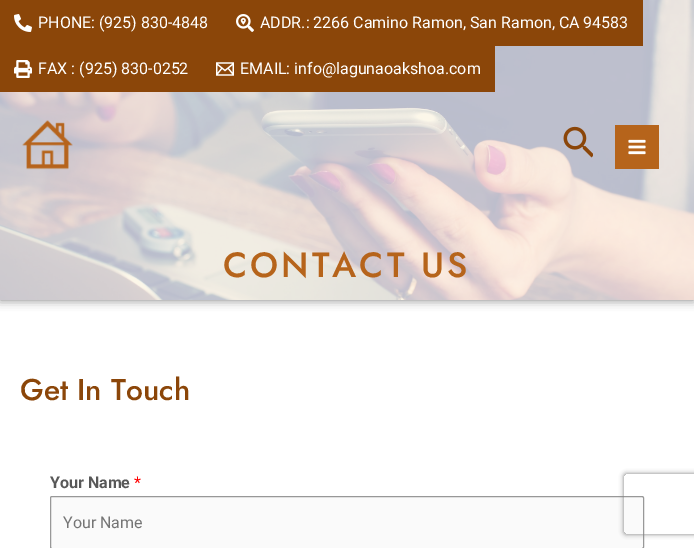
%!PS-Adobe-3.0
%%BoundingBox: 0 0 694 548
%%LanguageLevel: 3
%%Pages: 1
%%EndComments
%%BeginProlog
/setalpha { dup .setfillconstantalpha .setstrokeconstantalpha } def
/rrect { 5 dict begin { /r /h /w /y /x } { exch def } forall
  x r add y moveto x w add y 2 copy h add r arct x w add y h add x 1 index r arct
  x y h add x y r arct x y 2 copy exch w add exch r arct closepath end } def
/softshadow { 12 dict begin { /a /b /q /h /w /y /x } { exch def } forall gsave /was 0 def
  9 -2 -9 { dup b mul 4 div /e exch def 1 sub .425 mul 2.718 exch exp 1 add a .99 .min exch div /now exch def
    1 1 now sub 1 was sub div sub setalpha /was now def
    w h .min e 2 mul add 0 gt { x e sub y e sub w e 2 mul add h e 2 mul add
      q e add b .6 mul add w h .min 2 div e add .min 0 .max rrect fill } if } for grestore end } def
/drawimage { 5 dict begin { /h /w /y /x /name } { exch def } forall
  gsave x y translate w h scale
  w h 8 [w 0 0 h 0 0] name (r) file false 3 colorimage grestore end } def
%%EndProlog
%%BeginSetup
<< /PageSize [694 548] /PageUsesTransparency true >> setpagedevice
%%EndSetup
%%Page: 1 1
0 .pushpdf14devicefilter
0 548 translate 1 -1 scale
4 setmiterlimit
1 setgray
0 0 694 548 rectfill
0 setgray
0 0 694 300 0 5 0.5 softshadow
(images/8.raw) 0 0 694 300 drawimage
0.545 0.275 0.035 setrgbcolor
0 0 643 46 rectfill
(images/1.raw) 14 14 18 18 drawimage
(images/2.raw) 236 14 18 18 drawimage
0 46 495 46 rectfill
(images/3.raw) 14 60 18 18 drawimage
(images/4.raw) 216 62 18 14 drawimage
(images/5.raw) 22 120 51 50 drawimage
(images/6.raw) 563 126 30 32 drawimage
0.714 0.392 0.106 setrgbcolor
615 125 44 44 rectfill
(images/7.raw) 628 139 18 16 drawimage
0.98 setgray
50.5 496.5 593 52 1.5 rrect gsave fill grestore
0.596 setgray
stroke
gsave
newpath 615 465 moveto 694 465 lineto 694 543 lineto 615 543 lineto closepath 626 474 moveto 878 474 lineto 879 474 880 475 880 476 curveto 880 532 lineto 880 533 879 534 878 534 curveto 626 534 lineto 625 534 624 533 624 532 curveto 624 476 lineto 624 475 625 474 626 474 curveto closepath eoclip newpath
0.502 setgray
624 474 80 60 2 2.5 1 softshadow
grestore
/Roboto-Regular [16 0 0 -16 0 0] selectfont
1 setgray
38 28 moveto (PHONE: \(925\) 830-4848) show
260 28 moveto (ADDR.: 2266 Camino Ramon, San Ramon, CA 94583) show
38 74 moveto (FAX : \(925\) 830-0252) show
240 74 moveto (EMAIL: info@lagunaoakshoa.com) show
/Jost-Medium [35 0 0 -35 0 0] selectfont
0.714 0.392 0.106 setrgbcolor
223 277 moveto 3 0 (CONTACT US) ashow
/Jost-Medium [30 0 0 -30 0 0] selectfont
0.545 0.275 0.035 setrgbcolor
20 400 moveto (Get In Touch) show
/Roboto-Bold [16 0 0 -16 0 0] selectfont
0.345 setgray
50 488 moveto (Your Name) show
/Roboto-Regular [16 0 0 -16 0 0] selectfont
1 0 0 setrgbcolor
134 488 moveto (*) show
0.459 setgray
63 528 moveto (Your Name) show
.poppdf14devicefilter showpage
%%EOF
